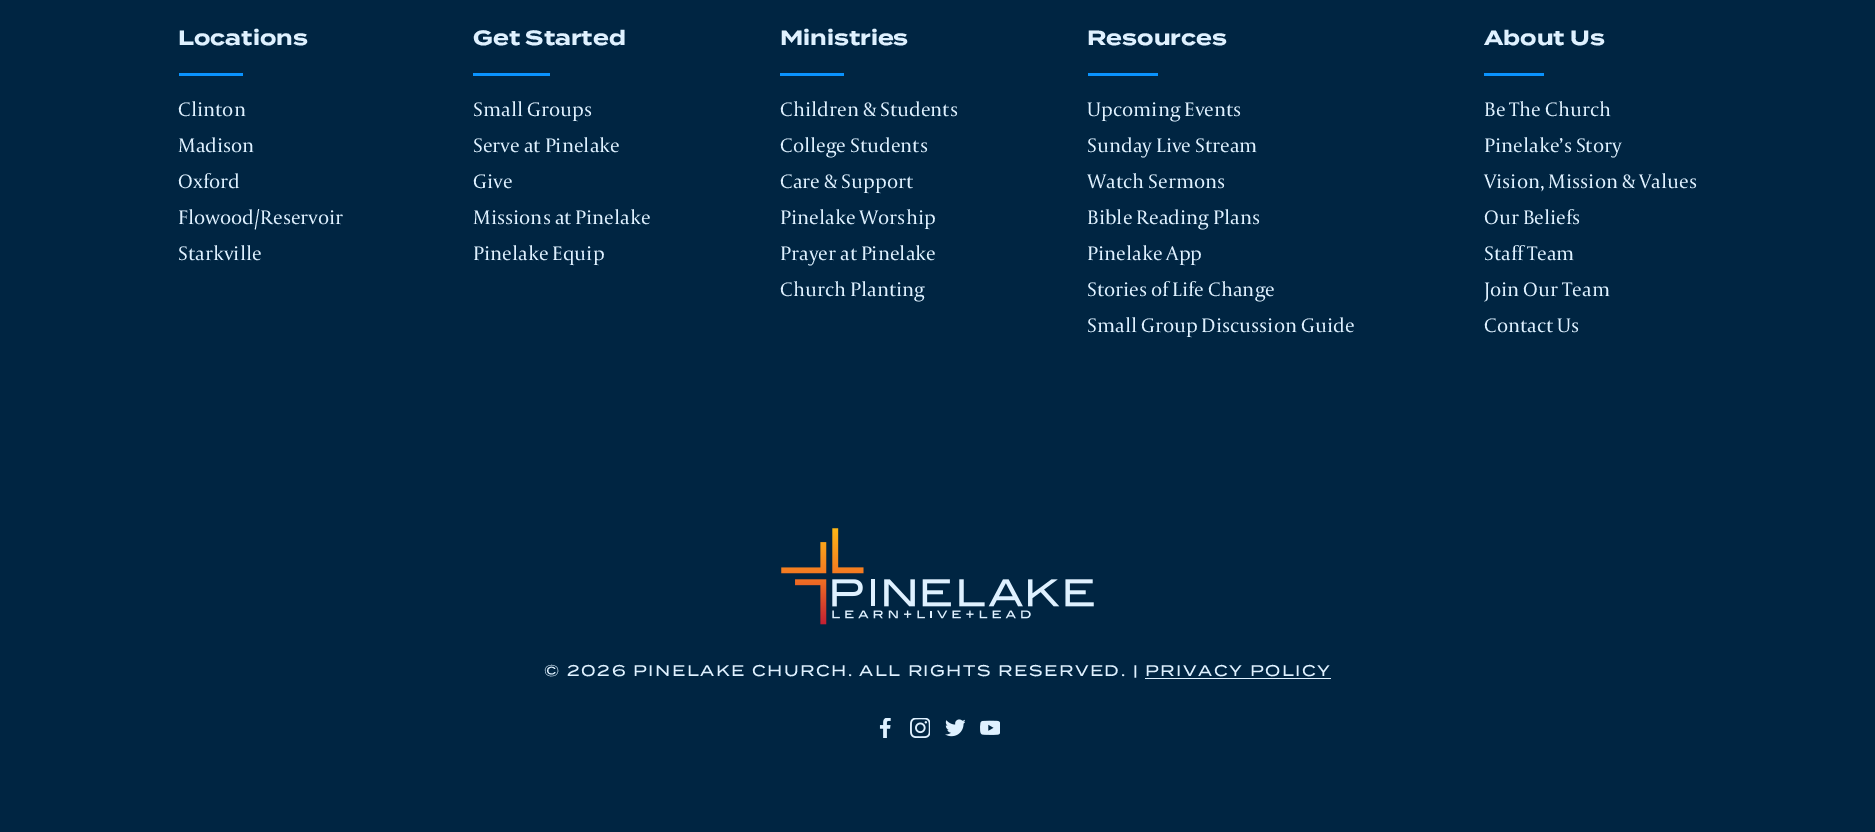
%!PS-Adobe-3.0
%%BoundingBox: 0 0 1875 832
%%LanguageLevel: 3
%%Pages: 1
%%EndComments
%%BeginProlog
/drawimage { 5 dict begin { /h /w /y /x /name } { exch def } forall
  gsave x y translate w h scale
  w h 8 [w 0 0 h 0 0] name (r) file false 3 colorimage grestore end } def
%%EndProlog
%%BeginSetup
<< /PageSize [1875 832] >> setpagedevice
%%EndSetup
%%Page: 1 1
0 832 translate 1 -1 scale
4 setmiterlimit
0 0.145 0.259 setrgbcolor
0 0 1875 832 rectfill
0.039 0.576 0.996 setrgbcolor
179 73 64 3 rectfill
473 73 77 3 rectfill
780 73 64 3 rectfill
1088 73 70 3 rectfill
1484 73 60 3 rectfill
(images/1.raw) 781 528 313 97 drawimage
0.875 0.945 1 setrgbcolor
1145 678 186 1 rectfill
(images/2.raw) 879 718 12 20 drawimage
(images/3.raw) 910 718 20 20 drawimage
(images/4.raw) 945 719 20 18 drawimage
(images/5.raw) 980 720 20 15 drawimage
/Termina-Bold [20.6 0 0 -20.6 0 0] selectfont
178 45 moveto (Locations) show
/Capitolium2-Regular [20.6 0 0 -20.6 0 0] selectfont
178 116 moveto (Clinton) show
178 152 moveto (Madison) show
178 188 moveto (Oxford) show
178 224 moveto (Flowood/Reservoir) show
178 260 moveto (Starkville) show
/Termina-Bold [20.6 0 0 -20.6 0 0] selectfont
473 45 moveto (Get Started) show
/Capitolium2-Regular [20.6 0 0 -20.6 0 0] selectfont
473 116 moveto (Small Groups) show
473 152 moveto (Serve at Pinelake) show
473 188 moveto (Give) show
473 224 moveto (Missions at Pinelake) show
473 260 moveto (Pinelake Equip) show
/Termina-Bold [20.6 0 0 -20.6 0 0] selectfont
780 45 moveto (Ministries) show
/Capitolium2-Regular [20.6 0 0 -20.6 0 0] selectfont
780 116 moveto (Children & Students) show
780 152 moveto (College Students) show
780 188 moveto (Care & Support) show
780 224 moveto (Pinelake Worship) show
780 260 moveto (Prayer at Pinelake) show
780 296 moveto (Church Planting) show
/Termina-Bold [20.6 0 0 -20.6 0 0] selectfont
1087 45 moveto (Resources) show
/Capitolium2-Regular [20.6 0 0 -20.6 0 0] selectfont
1087 116 moveto (Upcoming Events) show
1087 152 moveto (Sunday Live Stream) show
1087 188 moveto (Watch Sermons) show
1087 224 moveto (Bible Reading Plans) show
1087 260 moveto (Pinelake App) show
1087 296 moveto (Stories of Life Change) show
1087 332 moveto (Small Group Discussion Guide) show
/Termina-Bold [20.6 0 0 -20.6 0 0] selectfont
1484 45 moveto (About Us) show
/Capitolium2-Regular [20.6 0 0 -20.6 0 0] selectfont
1484 116 moveto (Be The Church) show
1484 152 moveto (Pinelake’s Story) show
1484 188 moveto (Vision, Mission & Values) show
1484 224 moveto (Our Beliefs) show
1484 260 moveto (Staff Team) show
1484 296 moveto (Join Our Team) show
1484 332 moveto (Contact Us) show
/Termina-Medium [15.5 0 0 -15.5 0 0] selectfont
544 676 moveto 1.55 0 (© 2026 PINELAKE CHURCH.) ashow
859 676 moveto 1.55 0 (ALL RIGHTS RESERVED. |) ashow
1145 676 moveto 1.55 0 (PRIVACY POLICY) ashow
showpage
%%EOF
